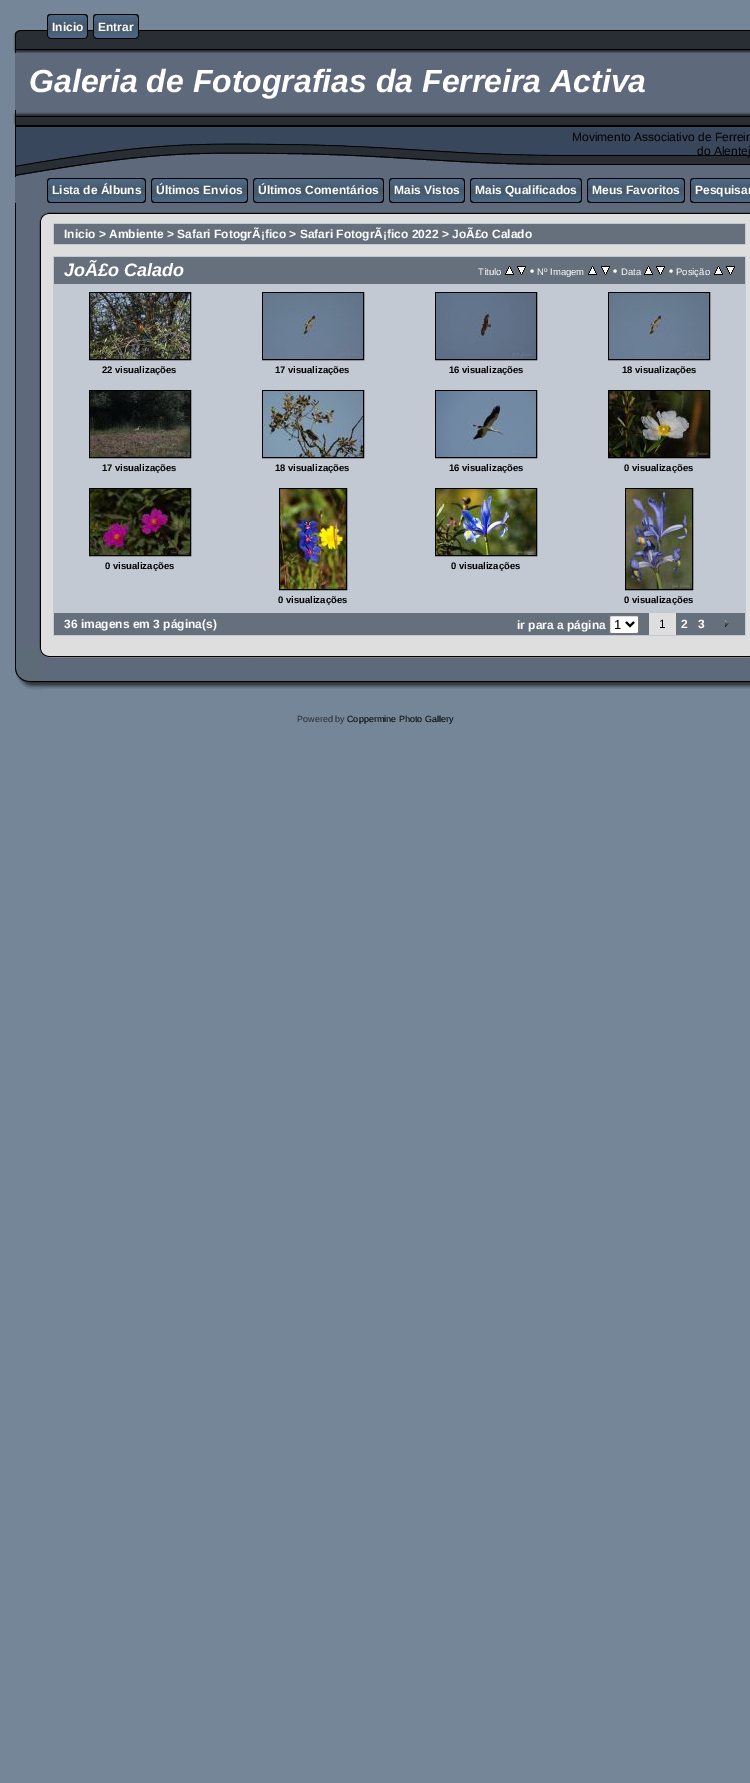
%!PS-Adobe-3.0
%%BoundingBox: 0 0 750 1783
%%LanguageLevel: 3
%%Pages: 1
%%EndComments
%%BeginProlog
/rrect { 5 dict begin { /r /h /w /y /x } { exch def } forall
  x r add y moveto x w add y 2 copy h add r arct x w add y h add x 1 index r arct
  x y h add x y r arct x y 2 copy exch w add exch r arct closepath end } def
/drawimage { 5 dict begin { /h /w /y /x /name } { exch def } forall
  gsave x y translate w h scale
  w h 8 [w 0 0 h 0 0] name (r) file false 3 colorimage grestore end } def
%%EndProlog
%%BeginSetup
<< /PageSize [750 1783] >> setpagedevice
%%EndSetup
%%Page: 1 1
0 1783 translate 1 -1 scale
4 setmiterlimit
0.459 0.525 0.596 setrgbcolor
0 0 750 1783 rectfill
(images/1.raw) 42 30 708 23 drawimage
(images/2.raw) 47 14 5 25 drawimage
(images/3.raw) 52 14 31 25 drawimage
(images/4.raw) 83 14 5 25 drawimage
(images/2.raw) 93 14 5 25 drawimage
(images/5.raw) 98 14 36 25 drawimage
(images/4.raw) 134 14 5 25 drawimage
(images/6.raw) 13 30 29 23 drawimage
0.369 0.412 0.482 setrgbcolor
15 53 735 57 rectfill
(images/7.raw) 13 110 547 67 drawimage
(images/8.raw) 560 110 190 67 drawimage
15 177 735 26 rectfill
(images/9.raw) 47 178 5 25 drawimage
(images/10.raw) 52 178 89 25 drawimage
(images/11.raw) 141 178 5 25 drawimage
(images/9.raw) 151 178 5 25 drawimage
(images/12.raw) 156 178 87 25 drawimage
(images/11.raw) 243 178 5 25 drawimage
(images/9.raw) 253 178 5 25 drawimage
(images/13.raw) 258 178 121 25 drawimage
(images/11.raw) 379 178 5 25 drawimage
(images/9.raw) 389 178 5 25 drawimage
(images/14.raw) 394 178 66 25 drawimage
(images/11.raw) 460 178 5 25 drawimage
(images/9.raw) 470 178 5 25 drawimage
(images/15.raw) 475 178 102 25 drawimage
(images/11.raw) 577 178 5 25 drawimage
(images/9.raw) 587 178 5 25 drawimage
(images/16.raw) 592 178 88 25 drawimage
(images/11.raw) 680 178 5 25 drawimage
(images/9.raw) 690 178 5 25 drawimage
(images/17.raw) 695 178 55 25 drawimage
(images/18.raw) 15 203 27 18 drawimage
(images/19.raw) 42 203 14 18 drawimage
(images/20.raw) 56 203 687 18 drawimage
(images/21.raw) 743 203 7 18 drawimage
(images/22.raw) 15 221 27 424 drawimage
0.871 setgray
42 221 708 424 rectfill
0.761 0.788 0.827 setrgbcolor
53 223 693 22 rectfill
0.4 0.439 0.486 setrgbcolor
54 224 691 20 rectfill
0.761 0.788 0.827 setrgbcolor
53 256 693 380 rectfill
0.4 0.439 0.486 setrgbcolor
54 257 691 27 rectfill
(images/23.raw) 505 266 9 9 drawimage
(images/24.raw) 517 266 9 9 drawimage
(images/23.raw) 588 266 9 9 drawimage
(images/24.raw) 601 266 9 9 drawimage
(images/23.raw) 644 266 9 9 drawimage
(images/24.raw) 656 266 9 9 drawimage
(images/23.raw) 714 266 9 9 drawimage
(images/24.raw) 726 266 9 9 drawimage
0 setgray
89.5 292.5 101 67 rectstroke
(images/25.raw) 90 293 100 66 drawimage
262.5 292.5 101 67 rectstroke
(images/26.raw) 263 293 100 66 drawimage
435.5 292.5 101 67 rectstroke
(images/27.raw) 436 293 100 66 drawimage
608.5 292.5 101 67 rectstroke
(images/26.raw) 609 293 100 66 drawimage
89.5 390.5 101 67 rectstroke
(images/28.raw) 90 391 100 66 drawimage
262.5 390.5 101 67 rectstroke
(images/29.raw) 263 391 100 66 drawimage
435.5 390.5 101 67 rectstroke
(images/30.raw) 436 391 100 66 drawimage
608.5 390.5 101 67 rectstroke
(images/31.raw) 609 391 100 66 drawimage
89.5 488.5 101 67 rectstroke
(images/32.raw) 90 489 100 66 drawimage
435.5 488.5 101 67 rectstroke
(images/33.raw) 436 489 100 66 drawimage
279.5 488.5 67 101 rectstroke
(images/34.raw) 280 489 66 100 drawimage
625.5 488.5 67 101 rectstroke
(images/35.raw) 626 489 66 100 drawimage
0.4 0.439 0.486 setrgbcolor
54 613 595 22 rectfill
1 setgray
609.5 615.5 29 18 1.5 rrect gsave fill grestore
0.463 setgray
stroke
0 setgray
2 setlinewidth
newpath 626 622 moveto 630 626 lineto 634 622 lineto stroke
0.871 setgray
649 613 27 22 rectfill
0.4 0.439 0.486 setrgbcolor
676 613 69 22 rectfill
(images/36.raw) 725 620 4 7 drawimage
(images/37.raw) 15 645 27 45 drawimage
(images/38.raw) 42 645 208 44 drawimage
(images/39.raw) 250 645 299 44 drawimage
(images/40.raw) 549 645 201 44 drawimage
/LiberationSans-Bold [12 0 0 -12 0 0] selectfont
1 setgray
52 31 moveto (Inicio) show
98 31 moveto (Entrar) show
/LiberationSans-BoldItalic [32 0 0 -32 0 0] selectfont
29 92 moveto (Galeria de Fotografias da Ferreira Activa) show
/LiberationSans-Regular [12 0 0 -12 0 0] selectfont
0 setgray
572 141 moveto (Movimento Associativo de Ferreir) show
697 155 moveto (do Alentej) show
/LiberationSans-Bold [12 0 0 -12 0 0] selectfont
1 setgray
52 194 moveto (Lista de Álbuns) show
156 194 moveto (Últimos Envios) show
258 194 moveto (Últimos Comentários) show
394 194 moveto (Mais Vistos) show
475 194 moveto (Mais Qualificados) show
592 194 moveto (Meus Favoritos) show
695 194 moveto (Pesquisar) show
64 238 moveto (Inicio > Ambiente > Safari FotogrÃ¡fico > Safari FotogrÃ¡fico 2022 > JoÃ£o Calado) show
/LiberationSans-BoldItalic [18 0 0 -18 0 0] selectfont
64 276 moveto (JoÃ£o Calado) show
/LiberationSans-Regular [9.5 0 0 -9.5 0 0] selectfont
478 275 moveto (Título) show
/LiberationSans-Bold [12 0 0 -12 0 0] selectfont
530 275 moveto (•) show
/LiberationSans-Regular [9.5 0 0 -9.5 0 0] selectfont
537 275 moveto (Nº Imagem) show
/LiberationSans-Bold [12 0 0 -12 0 0] selectfont
613 275 moveto (•) show
/LiberationSans-Regular [9.5 0 0 -9.5 0 0] selectfont
621 275 moveto (Data) show
/LiberationSans-Bold [12 0 0 -12 0 0] selectfont
669 275 moveto (•) show
/LiberationSans-Regular [9.5 0 0 -9.5 0 0] selectfont
676 275 moveto (Posição) show
/LiberationSans-Bold [9.5 0 0 -9.5 0 0] selectfont
0 setgray
102 373 moveto (22 visualizações) show
275 373 moveto (17 visualizações) show
449 373 moveto (16 visualizações) show
622 373 moveto (18 visualizações) show
102 471 moveto (17 visualizações) show
275 471 moveto (18 visualizações) show
449 471 moveto (16 visualizações) show
624 471 moveto (0 visualizações) show
105 569 moveto (0 visualizações) show
451 569 moveto (0 visualizações) show
278 603 moveto (0 visualizações) show
624 603 moveto (0 visualizações) show
/LiberationSans-Bold [12 0 0 -12 0 0] selectfont
1 setgray
64 628 moveto (36 imagens em 3 página\(s\)) show
517 629 moveto (ir para a página) show
/LiberationSans-Regular [13 0 0 -13 0 0] selectfont
0 setgray
614 629 moveto (1) show
/LiberationSans-Regular [12 0 0 -12 0 0] selectfont
659 628 moveto (1) show
/LiberationSans-Bold [12 0 0 -12 0 0] selectfont
1 setgray
681 628 moveto (2) show
698 628 moveto (3) show
/LiberationSans-Regular [9 0 0 -9 0 0] selectfont
0.161 0.18 0.204 setrgbcolor
297 722 moveto (Powered by) show
0 setgray
347 722 moveto (Coppermine Photo Gallery) show
showpage
%%EOF
